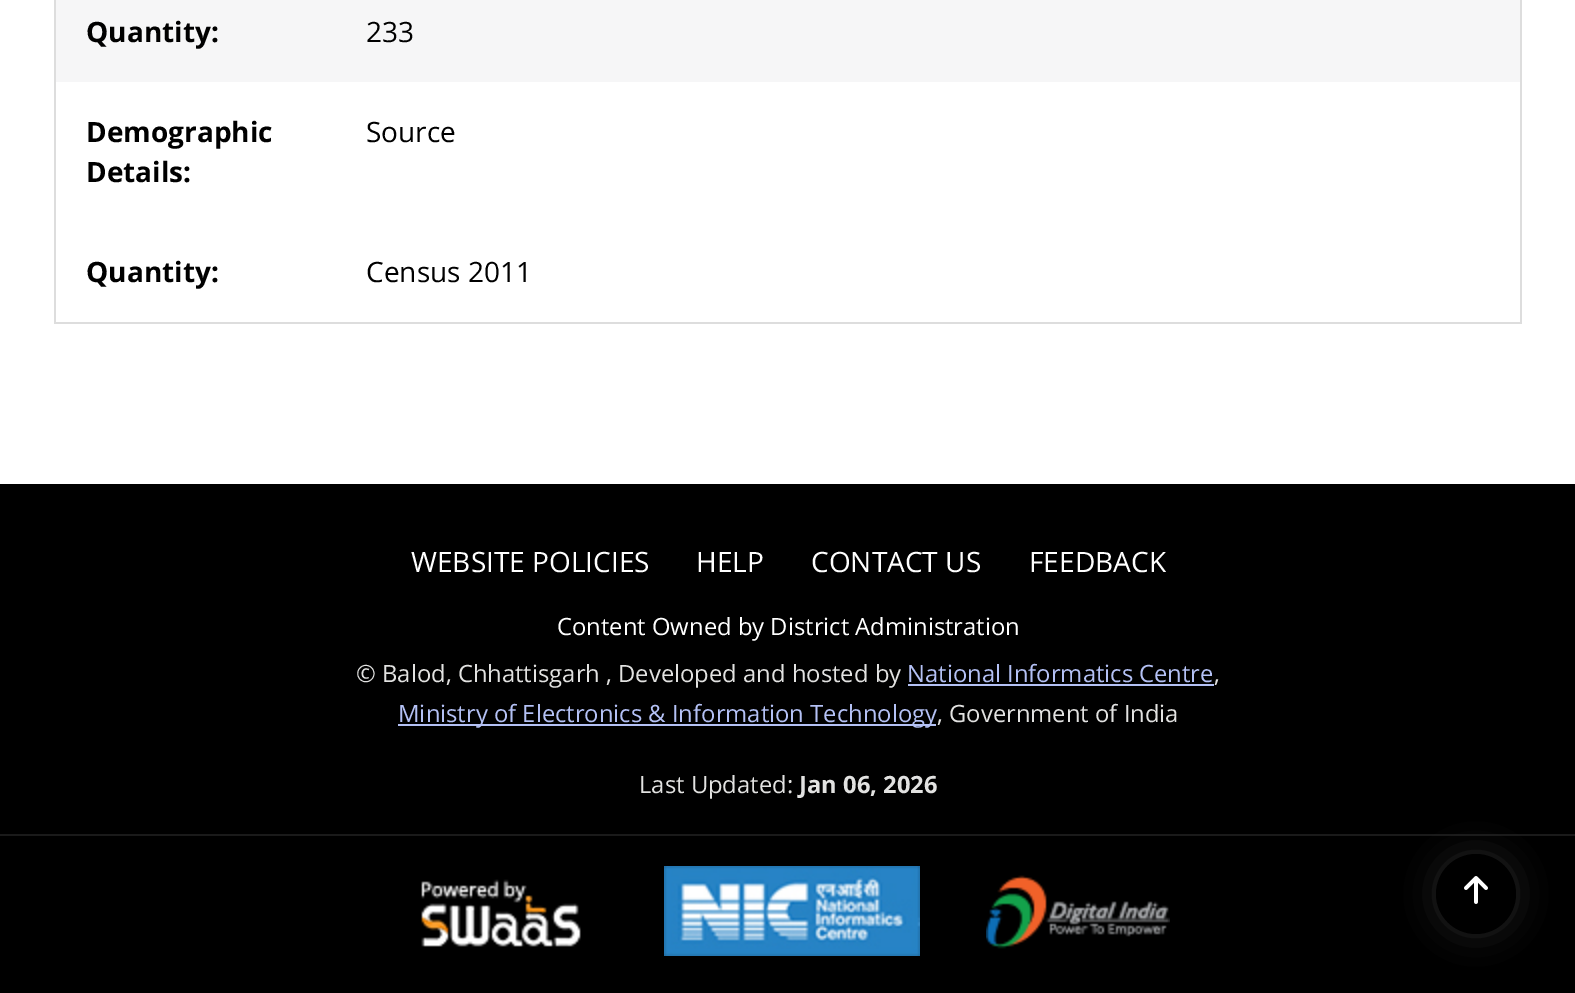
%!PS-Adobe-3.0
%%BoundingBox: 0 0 1575 993
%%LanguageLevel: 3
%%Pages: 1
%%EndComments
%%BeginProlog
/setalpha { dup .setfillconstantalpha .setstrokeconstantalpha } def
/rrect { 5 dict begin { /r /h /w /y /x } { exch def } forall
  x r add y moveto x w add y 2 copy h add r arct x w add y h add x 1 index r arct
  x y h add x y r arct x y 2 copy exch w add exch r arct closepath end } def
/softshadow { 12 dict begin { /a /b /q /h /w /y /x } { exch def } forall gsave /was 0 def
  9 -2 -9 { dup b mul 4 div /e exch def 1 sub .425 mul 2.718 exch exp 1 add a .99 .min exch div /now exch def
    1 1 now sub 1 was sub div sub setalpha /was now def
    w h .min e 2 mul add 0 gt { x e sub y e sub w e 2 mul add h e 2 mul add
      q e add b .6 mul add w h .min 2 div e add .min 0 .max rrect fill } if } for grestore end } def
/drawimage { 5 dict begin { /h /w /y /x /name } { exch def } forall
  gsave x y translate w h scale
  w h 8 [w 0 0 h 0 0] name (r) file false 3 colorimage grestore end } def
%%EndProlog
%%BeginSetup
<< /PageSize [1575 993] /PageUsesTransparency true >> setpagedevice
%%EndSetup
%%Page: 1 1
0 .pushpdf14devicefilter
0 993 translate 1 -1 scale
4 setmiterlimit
1 setgray
0 0 1575 993 rectfill
0.867 setgray
1520 0 2 324 rectfill
54 322 1468 2 rectfill
54 0 2 324 rectfill
0.965 0.965 0.969 setrgbcolor
56 0 1464 82 rectfill
0 setgray
0 484 1575 509 rectfill
0.706 0.757 0.961 setrgbcolor
908 684 306 2 rectfill
398 724 538 2 rectfill
0.102 setgray
0 834 1575 2 rectfill
(images/1.raw) 421 879 160 68 drawimage
(images/2.raw) 664 866 256 90 drawimage
(images/3.raw) 986 875 184 74 drawimage
0.235 setgray
1446 864 60 60 30 19 1 softshadow
0 setgray
newpath 1476 894 40 0 360 arc closepath fill
(images/4.raw) 1464 876 24 28 drawimage
/OpenSans-Bold [28 0 0 -28 0 0] selectfont
86 42 moveto (Quantity:) show
/OpenSans-Regular [28 0 0 -28 0 0] selectfont
366 42 moveto (233) show
/OpenSans-Bold [28 0 0 -28 0 0] selectfont
86 142 moveto (Demographic) show
86 182 moveto (Details:) show
/OpenSans-Regular [28 0 0 -28 0 0] selectfont
366 142 moveto (Source) show
/OpenSans-Bold [28 0 0 -28 0 0] selectfont
86 282 moveto (Quantity:) show
/OpenSans-Regular [28 0 0 -28 0 0] selectfont
366 282 moveto (Census 2011) show
1 setgray
411 572 moveto (WEBSITE POLICIES) show
696 572 moveto (HELP) show
811 572 moveto (CONTACT US) show
1029 572 moveto (FEEDBACK) show
/OpenSans-Regular [23.8 0 0 -23.8 0 0] selectfont
557 635 moveto (Content Owned by District Administration) show
0.886 0.886 0.882 setrgbcolor
356 682 moveto (© Balod, Chhattisgarh , Developed and hosted by) show
0.706 0.757 0.961 setrgbcolor
907 682 moveto (National Informatics Centre) show
0.886 0.886 0.882 setrgbcolor
1214 682 moveto (,) show
0.706 0.757 0.961 setrgbcolor
398 722 moveto (Ministry of Electronics & Information Technology) show
0.886 0.886 0.882 setrgbcolor
937 722 moveto (, Government of India) show
639 793 moveto (Last Updated:) show
/OpenSans-Bold [23.8 0 0 -23.8 0 0] selectfont
799 793 moveto (Jan 06, 2026) show
.poppdf14devicefilter showpage
%%EOF
